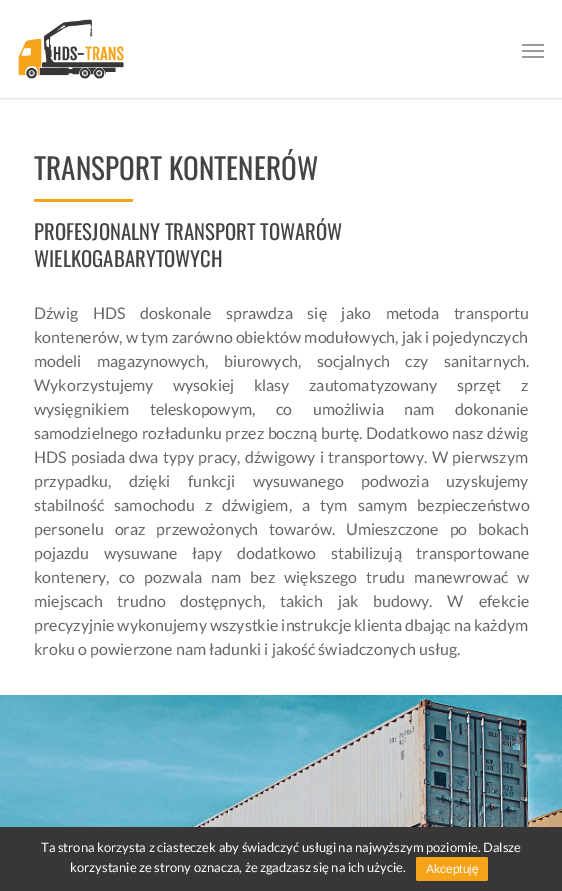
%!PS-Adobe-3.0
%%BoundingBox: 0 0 562 891
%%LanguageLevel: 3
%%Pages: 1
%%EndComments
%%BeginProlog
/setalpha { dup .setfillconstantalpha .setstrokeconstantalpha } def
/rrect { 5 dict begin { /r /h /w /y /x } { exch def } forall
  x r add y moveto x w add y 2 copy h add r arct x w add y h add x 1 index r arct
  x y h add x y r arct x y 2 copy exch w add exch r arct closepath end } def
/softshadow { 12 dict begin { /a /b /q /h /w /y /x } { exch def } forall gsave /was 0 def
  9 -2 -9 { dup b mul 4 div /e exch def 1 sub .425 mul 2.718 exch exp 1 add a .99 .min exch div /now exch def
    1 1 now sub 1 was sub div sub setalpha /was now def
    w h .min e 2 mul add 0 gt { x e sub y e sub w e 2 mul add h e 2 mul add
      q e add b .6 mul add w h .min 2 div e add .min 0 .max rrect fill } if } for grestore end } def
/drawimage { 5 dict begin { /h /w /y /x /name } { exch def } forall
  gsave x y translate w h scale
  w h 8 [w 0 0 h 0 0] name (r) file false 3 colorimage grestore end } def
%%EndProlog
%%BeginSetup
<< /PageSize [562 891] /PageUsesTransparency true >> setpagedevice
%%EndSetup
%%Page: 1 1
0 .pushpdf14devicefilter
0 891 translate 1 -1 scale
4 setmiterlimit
1 setgray
0 0 562 891 rectfill
0 setgray
0 0 562 98 0 1.5 0.22 softshadow
1 setgray
0 0 562 98 rectfill
(images/1.raw) 18 19 106 60 drawimage
0.6 setgray
522 44 22 2 rectfill
522 56 22 2 rectfill
522 50 22 2 rectfill
0.961 0.643 0.098 setrgbcolor
34 199 99 3 rectfill
(images/2.raw) 0 695 562 132 drawimage
0.22 0.212 0.212 setrgbcolor
0 827 562 64 rectfill
0.961 0.643 0.098 setrgbcolor
416 857 72 24 2 rrect fill
/Oswald-Regular [29.25 0 0 -29.25 0 0] selectfont
0.267 setgray
34 180 moveto (TRANSPORT KONTENERÓW) show
/Oswald-Regular [20.75 0 0 -20.75 0 0] selectfont
34 240 moveto (PROFESJONALNY TRANSPORT TOWARÓW) show
34 267 moveto (WIELKOGABARYTOWYCH) show
/Lato-Regular [16 0 0 -16 0 0] selectfont
0.404 setgray
34 319 moveto 11.5 0 32 (Dźwig HDS doskonale sprawdza się jako metoda transportu) widthshow
34 343 moveto (kontenerów, w tym zarówno obiektów modułowych, jak i pojedynczych) show
34 367 moveto 12.5 0 32 (modeli magazynowych, biurowych, socjalnych czy sanitarnych.) widthshow
34 391 moveto 16.5 0 32 (Wykorzystujemy wysokiej klasy zautomatyzowany sprzęt z) widthshow
34 415 moveto 17.5 0 32 (wysięgnikiem teleskopowym, co umożliwia nam dokonanie) widthshow
34 439 moveto 0.5 0 32 (samodzielnego rozładunku przez boczną burtę. Dodatkowo nasz dźwig) widthshow
34 463 moveto 1.25 0 32 (HDS posiada dwa typy pracy, dźwigowy i transportowy. W pierwszym) widthshow
34 487 moveto 14.5 0 32 (przypadku, dzięki funkcji wysuwanego podwozia uzyskujemy) widthshow
34 511 moveto 7 0 32 (stabilność samochodu z dźwigiem, a tym samym bezpieczeństwo) widthshow
34 535 moveto 7.75 0 32 (personelu oraz przewożonych towarów. Umieszczone po bokach) widthshow
34 559 moveto 11.5 0 32 (pojazdu wysuwane łapy dodatkowo stabilizują transportowane) widthshow
34 583 moveto 6 0 32 (kontenery, co pozwala nam bez większego trudu manewrować w) widthshow
34 607 moveto 11.75 0 32 (miejscach trudno dostępnych, takich jak budowy. W efekcie) widthshow
34 631 moveto (precyzyjnie wykonujemy wszystkie instrukcje klienta dbając na każdym) show
34 655 moveto (kroku o powierzone nam ładunki i jakość świadczonych usług.) show
/Lato-Regular [13 0 0 -13 0 0] selectfont
1 setgray
41 852 moveto (Ta strona korzysta z ciasteczek aby świadczyć usługi na najwyższym poziomie. Dalsze) show
70 872 moveto (korzystanie ze strony oznacza, że zgadzasz się na ich użycie.) show
/LiberationSans-Regular [12 0 0 -12 0 0] selectfont
426 873 moveto (Akceptuję) show
.poppdf14devicefilter showpage
%%EOF
